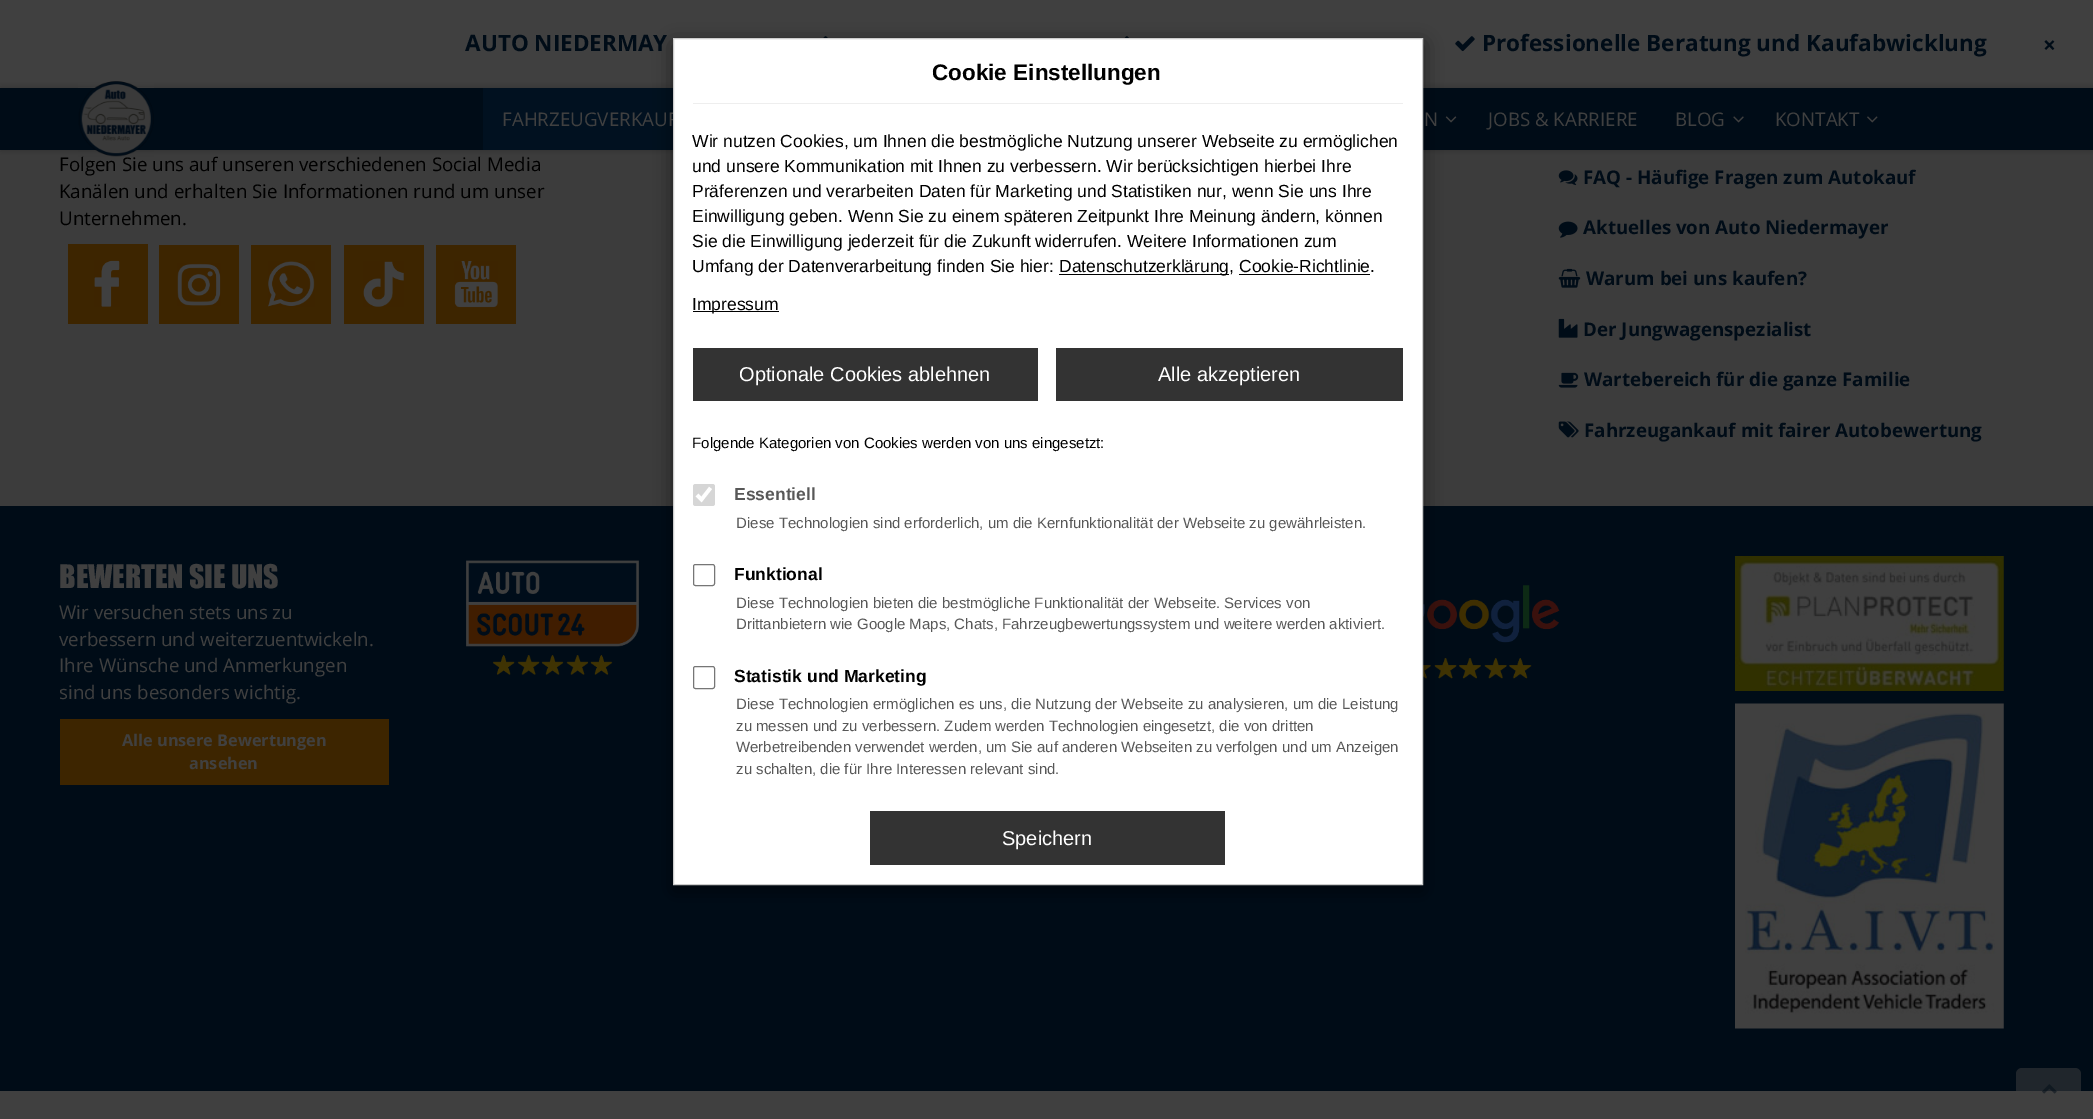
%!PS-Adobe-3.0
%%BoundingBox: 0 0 2093 1119
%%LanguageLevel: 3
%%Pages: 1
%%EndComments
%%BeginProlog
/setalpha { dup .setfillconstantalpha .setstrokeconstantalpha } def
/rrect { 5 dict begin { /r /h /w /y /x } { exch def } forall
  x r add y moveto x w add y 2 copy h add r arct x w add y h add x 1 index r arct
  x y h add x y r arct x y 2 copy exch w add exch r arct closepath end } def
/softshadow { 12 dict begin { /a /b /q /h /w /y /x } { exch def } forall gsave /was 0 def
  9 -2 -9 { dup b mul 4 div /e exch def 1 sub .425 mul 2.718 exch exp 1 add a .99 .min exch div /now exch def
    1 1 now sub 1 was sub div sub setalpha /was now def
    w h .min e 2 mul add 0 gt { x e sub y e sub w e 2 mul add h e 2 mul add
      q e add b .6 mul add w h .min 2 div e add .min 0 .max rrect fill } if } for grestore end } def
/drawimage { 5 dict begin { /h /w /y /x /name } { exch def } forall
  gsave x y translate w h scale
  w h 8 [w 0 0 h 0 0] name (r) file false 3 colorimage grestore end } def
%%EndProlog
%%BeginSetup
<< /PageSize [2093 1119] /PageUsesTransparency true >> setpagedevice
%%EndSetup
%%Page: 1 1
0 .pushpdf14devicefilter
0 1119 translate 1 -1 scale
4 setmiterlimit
0.251 setgray
0 0 2093 1119 rectfill
(images/1.raw) 823 36 5 2 drawimage
(images/2.raw) 1124 36 5 2 drawimage
(images/3.raw) 1455 36 20 16 drawimage
0.235 setgray
0 150 2093 356 rectfill
0 setgray
1 88 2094 62 0 3 0.25 softshadow
0 0.047 0.09 setrgbcolor
0 88 2093 62 rectfill
0.004 0.067 0.125 setrgbcolor
483 88 190 62 rectfill
(images/5.raw) 1445 116 12 7 drawimage
(images/6.raw) 1733 116 11 7 drawimage
(images/7.raw) 1867 116 11 7 drawimage
0.239 0.145 0 setrgbcolor
68 244 80 80 rectfill
(images/8.raw) 94 260 26 47 drawimage
159 245 80 79 rectfill
(images/9.raw) 177 263 44 43 drawimage
251 245 80 79 rectfill
(images/10.raw) 268 261 47 46 drawimage
344 245 80 79 rectfill
(images/11.raw) 363 261 41 46 drawimage
436 245 80 79 rectfill
(images/12.raw) 454 261 44 47 drawimage
(images/13.raw) 1558 170 20 16 drawimage
(images/14.raw) 1558 221 20 17 drawimage
(images/15.raw) 1558 268 23 20 drawimage
(images/16.raw) 1558 318 20 20 drawimage
(images/17.raw) 1558 372 21 16 drawimage
(images/18.raw) 1558 421 21 17 drawimage
0 0.047 0.09 setrgbcolor
0 506 2093 585 rectfill
0.239 0.145 0 setrgbcolor
60 719 329 66 rectfill
(images/19.raw) 466 560 173 115 drawimage
(images/20.raw) 1423 585 137 94 drawimage
(images/21.raw) 1735 556 269 135 drawimage
(images/22.raw) 1735 703 269 326 drawimage
0.5 setalpha
0.251 setgray
2016 1068 65 40 6 rrect fill
1 setalpha
(images/23.raw) 2042 1084 15 10 drawimage
0 setgray
673 44 750 847 0 9.5 0.5 softshadow
/OpenSans-Bold [22.5 0 0 -22.5 0 0] selectfont
0 0.047 0.09 setrgbcolor
465 51 moveto (AUTO NIEDERMAY) show
1482 51 moveto (Professionelle Beratung und Kaufabwicklung) show
2043 53 moveto (×) show
/OpenSans-Regular [18.75 0 0 -18.75 0 0] selectfont
0.251 setgray
502 126 moveto (FAHRZEUGVERKAUF) show
1424 126 moveto (N) show
1488 126 moveto (JOBS & KARRIERE) show
1675 126 moveto (BLOG) show
1775 126 moveto (KONTAKT) show
0 setgray
59 171 moveto (Folgen Sie uns auf unseren verschiedenen Social Media) show
(images/4.raw) 78 81 76 76 drawimage
59 198 moveto (Kanälen und erhalten Sie Informationen rund um unser) show
59 225 moveto (Unternehmen.) show
/OpenSans-Bold [18.75 0 0 -18.75 0 0] selectfont
0 0.047 0.09 setrgbcolor
1583 184 moveto (FAQ - Häufige Fragen zum Autokauf) show
1583 234 moveto (Aktuelles von Auto Niedermayer) show
1586 285 moveto (Warum bei uns kaufen?) show
1583 336 moveto (Der Jungwagenspezialist) show
1584 386 moveto (Wartebereich für die ganze Familie) show
1584 437 moveto (Fahrzeugankauf mit fairer Autobewertung) show
/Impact-Regular [30 0 0 -30 0 0] selectfont
0.251 setgray
59 588 moveto (BEWERTEN SIE UNS) show
/OpenSans-Regular [18.75 0 0 -18.75 0 0] selectfont
59 619 moveto (Wir versuchen stets uns zu) show
59 646 moveto (verbessern und weiterzuentwickeln.) show
59 672 moveto (Ihre Wünsche und Anmerkungen) show
59 699 moveto (sind uns besonders wichtig.) show
/OpenSans-Bold [16.25 0 0 -16.25 0 0] selectfont
122 746 moveto (Alle unsere Bewertungen) show
189 769 moveto (ansehen) show
1 setgray
newpath 673.5 38.5 moveto 1422.5 38.5 lineto 1422.5 884.5 lineto 673.5 884.5 lineto closepath gsave fill grestore
0.8 setgray
stroke
0.933 setgray
693 103 710 1 rectfill
/LiberationSans-Bold [22.5 0 0 -22.5 0 0] selectfont
0 setgray
932 80 moveto (Cookie Einstellungen) show
/LiberationSans-Regular [17.5 0 0 -17.5 0 0] selectfont
692 147 moveto (Wir nutzen Cookies, um Ihnen die bestmögliche Nutzung unserer Webseite zu ermöglichen) show
692 172 moveto (und unsere Kommunikation mit Ihnen zu verbessern. Wir berücksichtigen hierbei Ihre) show
692 197 moveto (Präferenzen und verarbeiten Daten für Marketing und Statistiken nur, wenn Sie uns Ihre) show
692 222 moveto (Einwilligung geben. Wenn Sie zu einem späteren Zeitpunkt Ihre Meinung ändern, können) show
692 247 moveto (Sie die Einwilligung jederzeit für die Zukunft widerrufen. Weitere Informationen zum) show
692 272 moveto (Umfang der Datenverarbeitung finden Sie hier:) show
1059 274 170 1 rectfill
1059 272 moveto (Datenschutzerklärung, Cookie-Richtlinie.) show
1239 274 131 1 rectfill
693 311 86 1 rectfill
692 310 moveto (Impressum) show
0.2 setgray
693 348 345 53 rectfill
/LiberationSans-Regular [20 0 0 -20 0 0] selectfont
1 setgray
739 381 moveto (Optionale Cookies ablehnen) show
0.2 setgray
1056 348 347 53 rectfill
1 setgray
1158 381 moveto (Alle akzeptieren) show
/LiberationSans-Regular [15 0 0 -15 0 0] selectfont
0 setgray
692 448 moveto (Folgende Kategorien von Cookies werden von uns eingesetzt:) show
0.839 setgray
693 484 22 22 2.5 rrect fill
1 setgray
3.6 setlinewidth
newpath 697 495 moveto 701.5 499.5 lineto 710.5 488 lineto stroke
/LiberationSans-Bold [17.5 0 0 -17.5 0 0] selectfont
0.345 setgray
734 500 moveto (Essentiell) show
/LiberationSans-Regular [15 0 0 -15 0 0] selectfont
736 528 moveto (Diese Technologien sind erforderlich, um die Kernfunktionalität der Webseite zu gewährleisten.) show
0.463 setgray
1 setlinewidth
693.5 564.5 21 21 2 rrect stroke
/LiberationSans-Bold [17.5 0 0 -17.5 0 0] selectfont
0 setgray
734 580 moveto (Funktional) show
/LiberationSans-Regular [15 0 0 -15 0 0] selectfont
0.345 setgray
736 608 moveto (Diese Technologien bieten die bestmögliche Funktionalität der Webseite. Services von) show
736 629 moveto (Drittanbietern wie Google Maps, Chats, Fahrzeugbewertungssystem und weitere werden aktiviert.) show
0.463 setgray
693.5 666.5 21 22 2 rrect stroke
/LiberationSans-Bold [17.5 0 0 -17.5 0 0] selectfont
0 setgray
734 682 moveto (Statistik und Marketing) show
/LiberationSans-Regular [15 0 0 -15 0 0] selectfont
0.345 setgray
736 709 moveto (Diese Technologien ermöglichen es uns, die Nutzung der Webseite zu analysieren, um die Leistung) show
736 731 moveto (zu messen und zu verbessern. Zudem werden Technologien eingesetzt, die von dritten) show
736 752 moveto (Werbetreibenden verwendet werden, um Sie auf anderen Webseiten zu verfolgen und um Anzeigen) show
736 774 moveto (zu schalten, die für Ihre Interessen relevant sind.) show
0.2 setgray
870 811 355 54 rectfill
/LiberationSans-Regular [20 0 0 -20 0 0] selectfont
1 setgray
1002 845 moveto (Speichern) show
.poppdf14devicefilter showpage
%%EOF
